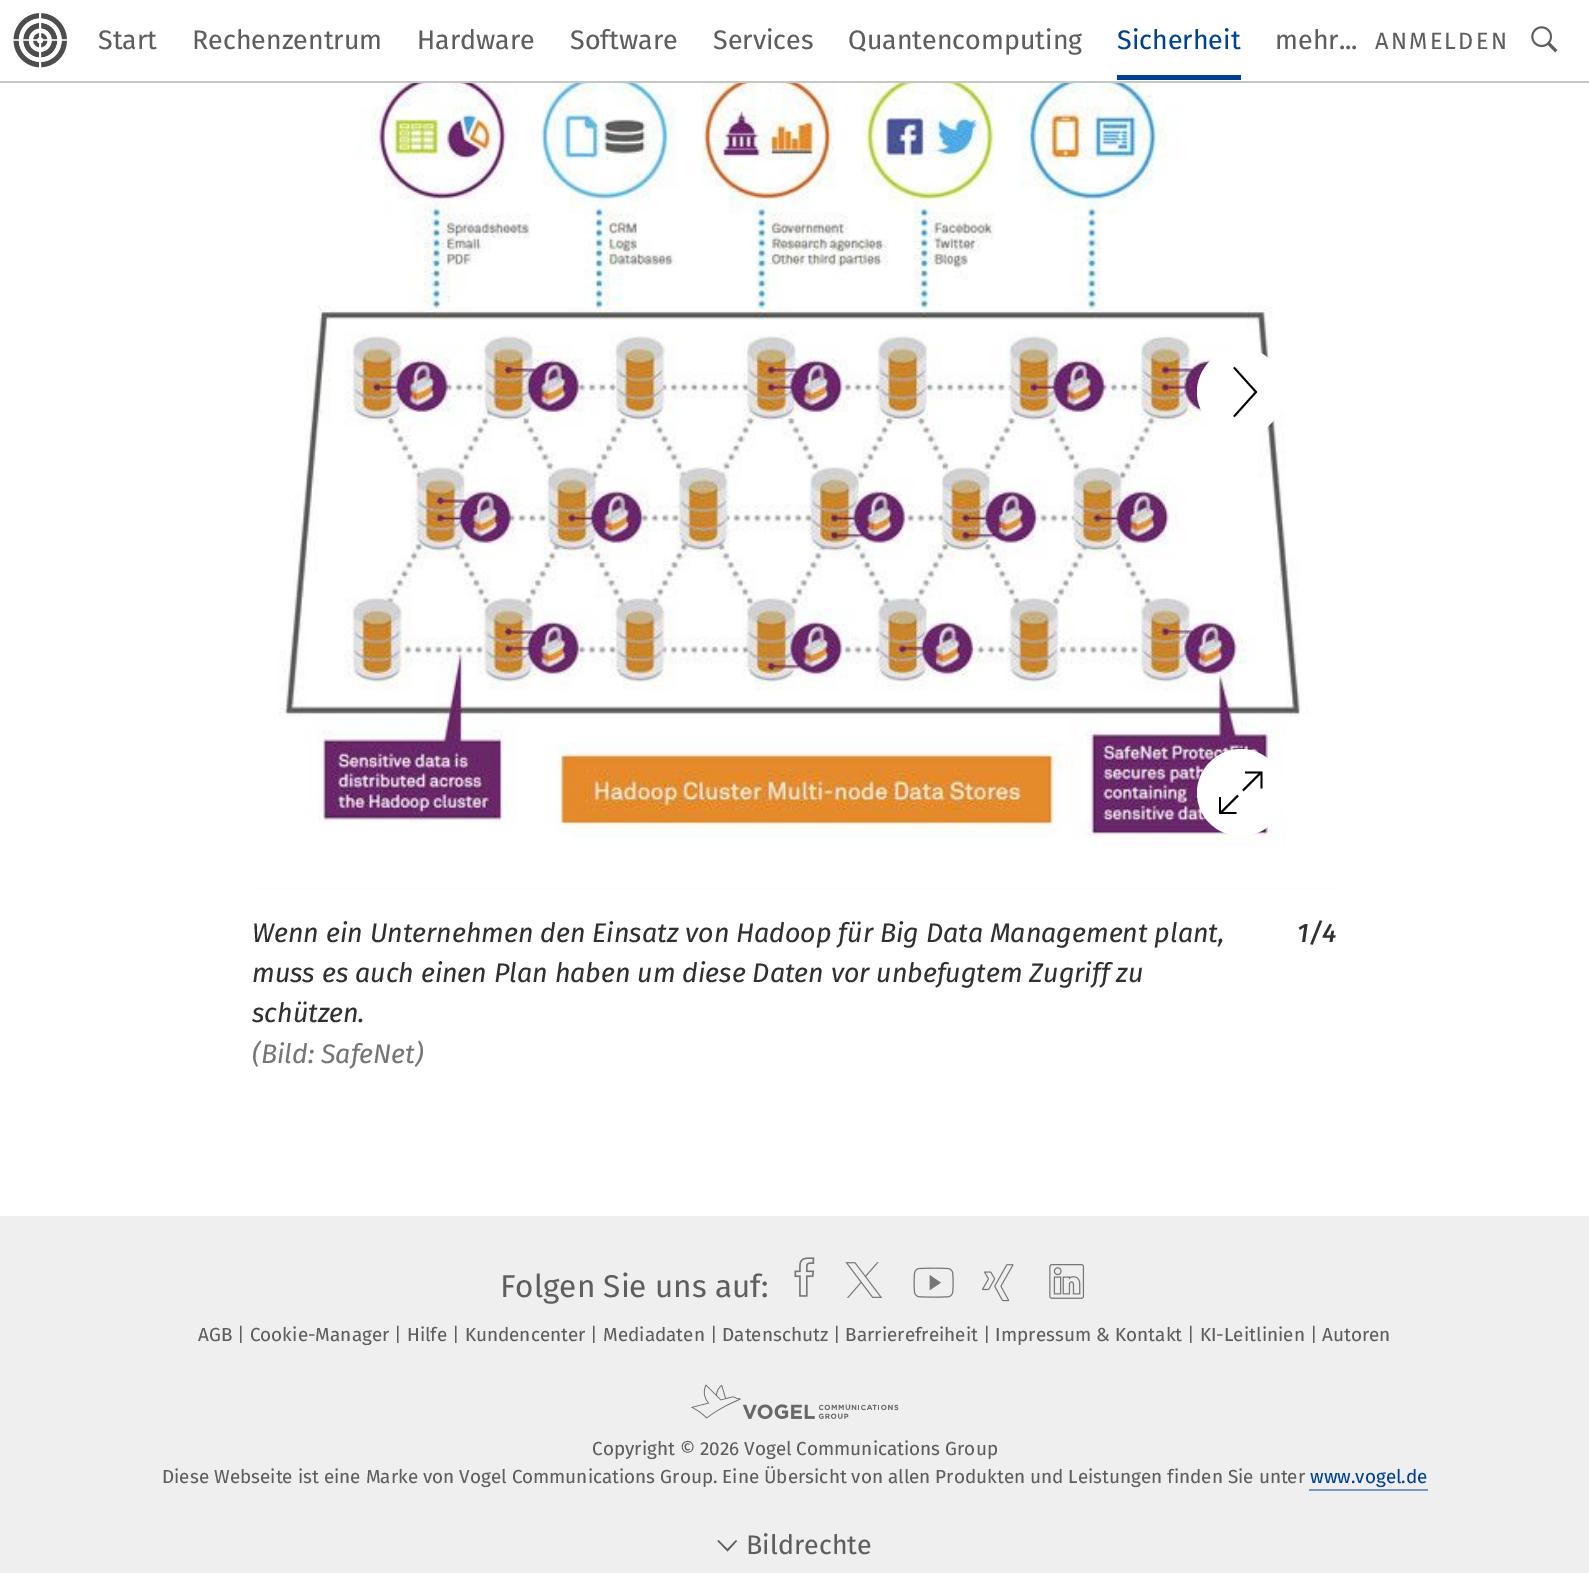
%!PS-Adobe-3.0
%%BoundingBox: 0 0 1589 1573
%%LanguageLevel: 3
%%Pages: 1
%%EndComments
%%BeginProlog
/drawimage { 5 dict begin { /h /w /y /x /name } { exch def } forall
  gsave x y translate w h scale
  w h 8 [w 0 0 h 0 0] name (r) file false 3 colorimage grestore end } def
%%EndProlog
%%BeginSetup
<< /PageSize [1589 1573] >> setpagedevice
%%EndSetup
%%Page: 1 1
0 1573 translate 1 -1 scale
4 setmiterlimit
1 setgray
0 0 1589 1573 rectfill
0.776 setgray
0 81 1589 2 rectfill
(images/1.raw) 13 13 54 55 drawimage
0 0.255 0.569 setrgbcolor
1117 75 124 5 rectfill
(images/2.raw) 1531 26 27 27 drawimage
(images/3.raw) 252 83 1085 806 drawimage
1 setgray
newpath 1241 348 moveto 1217 348 1197 368 1197 392 curveto 1197 416 1217 436 1241 436 curveto 1265 436 1284 416 1284 392 curveto 1284 368 1265 348 1241 348 curveto fill
0 setgray
1.8 setlinewidth
newpath 1234 416.5 moveto 1256 392 lineto 1234 367.5 lineto stroke
1 setgray
newpath 1241 836 moveto 1265 836 1284 817 1284 793 curveto 1284 769 1265 749 1241 749 curveto 1217 749 1197 769 1197 793 curveto 1197 817 1217 836 1241 836 curveto fill
0 setgray
newpath 1261.5 788.5 moveto 1261.5 772.5 lineto 1245 772.5 lineto 1220 797 moveto 1220 813 lineto 1236.5 813 lineto 1260.5 773 moveto 1243 790.5 lineto 1238 795.5 moveto 1220.5 813 lineto stroke
0.937 setgray
0 1216 1589 357 rectfill
(images/4.raw) 794 1257 21 40 drawimage
(images/5.raw) 845 1262 38 36 drawimage
(images/6.raw) 913 1267 41 31 drawimage
(images/7.raw) 982 1264 32 38 drawimage
(images/8.raw) 1049 1264 36 35 drawimage
(images/9.raw) 691 1384 208 35 drawimage
0.471 0.596 0.753 setrgbcolor
1309 1489 119 2 rectfill
0.369 setgray
newpath 736 1540 moveto 737 1541 lineto 727.5 1551.5 lineto 717.5 1541 lineto 718.5 1540 lineto 727.5 1549 lineto closepath fill
/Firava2-Regular [26.8 0 0 -26.8 0 0] selectfont
98 49 moveto (Start) show
192 49 moveto (Rechenzentrum) show
417 49 moveto (Hardware) show
570 49 moveto (Software) show
713 49 moveto (Services) show
848 49 moveto (Quantencomputing) show
0 0.255 0.569 setrgbcolor
1117 49 moveto (Sicherheit) show
0.369 setgray
1275 49 moveto (mehr...) show
/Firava-Regular [23.5 0 0 -23.5 0 0] selectfont
1375 49 moveto 2.25 0 (ANMELDEN) ashow
/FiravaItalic-Italic [26.8 0 0 -26.8 0 0] selectfont
0.188 setgray
252 942 moveto (Wenn ein Unternehmen den Einsatz von Hadoop für Big Data Management plant,) show
252 982 moveto (muss es auch einen Plan haben um diese Daten vor unbefugtem Zugriff zu) show
252 1022 moveto (schützen.) show
0.463 setgray
252 1063 moveto (\(Bild: SafeNet\)) show
/FiravaItalic-MediumItalic [26.8 0 0 -26.8 0 0] selectfont
0.188 setgray
1297 942 moveto (1/4) show
/Firava-Regular [31.5 0 0 -31.5 0 0] selectfont
0.369 setgray
500 1297 moveto (Folgen Sie uns auf:) show
/Firava2-Regular [18.9 0 0 -18.9 0 0] selectfont
198 1341 moveto (AGB | Cookie-Manager | Hilfe | Kundencenter | Mediadaten | Datenschutz | Barrierefreiheit | Impressum & Kontakt | KI-Leitlinien | Autoren) show
592 1455 moveto (Copyright © 2026 Vogel Communications Group) show
162 1483 moveto (Diese Webseite ist eine Marke von Vogel Communications Group. Eine Übersicht von allen Produkten und Leistungen finden Sie unter) show
0 0.255 0.569 setrgbcolor
1310 1483 moveto (www.vogel.de) show
/Firava2-Regular [26.8 0 0 -26.8 0 0] selectfont
0.369 setgray
746 1554 moveto (Bildrechte) show
showpage
%%EOF
